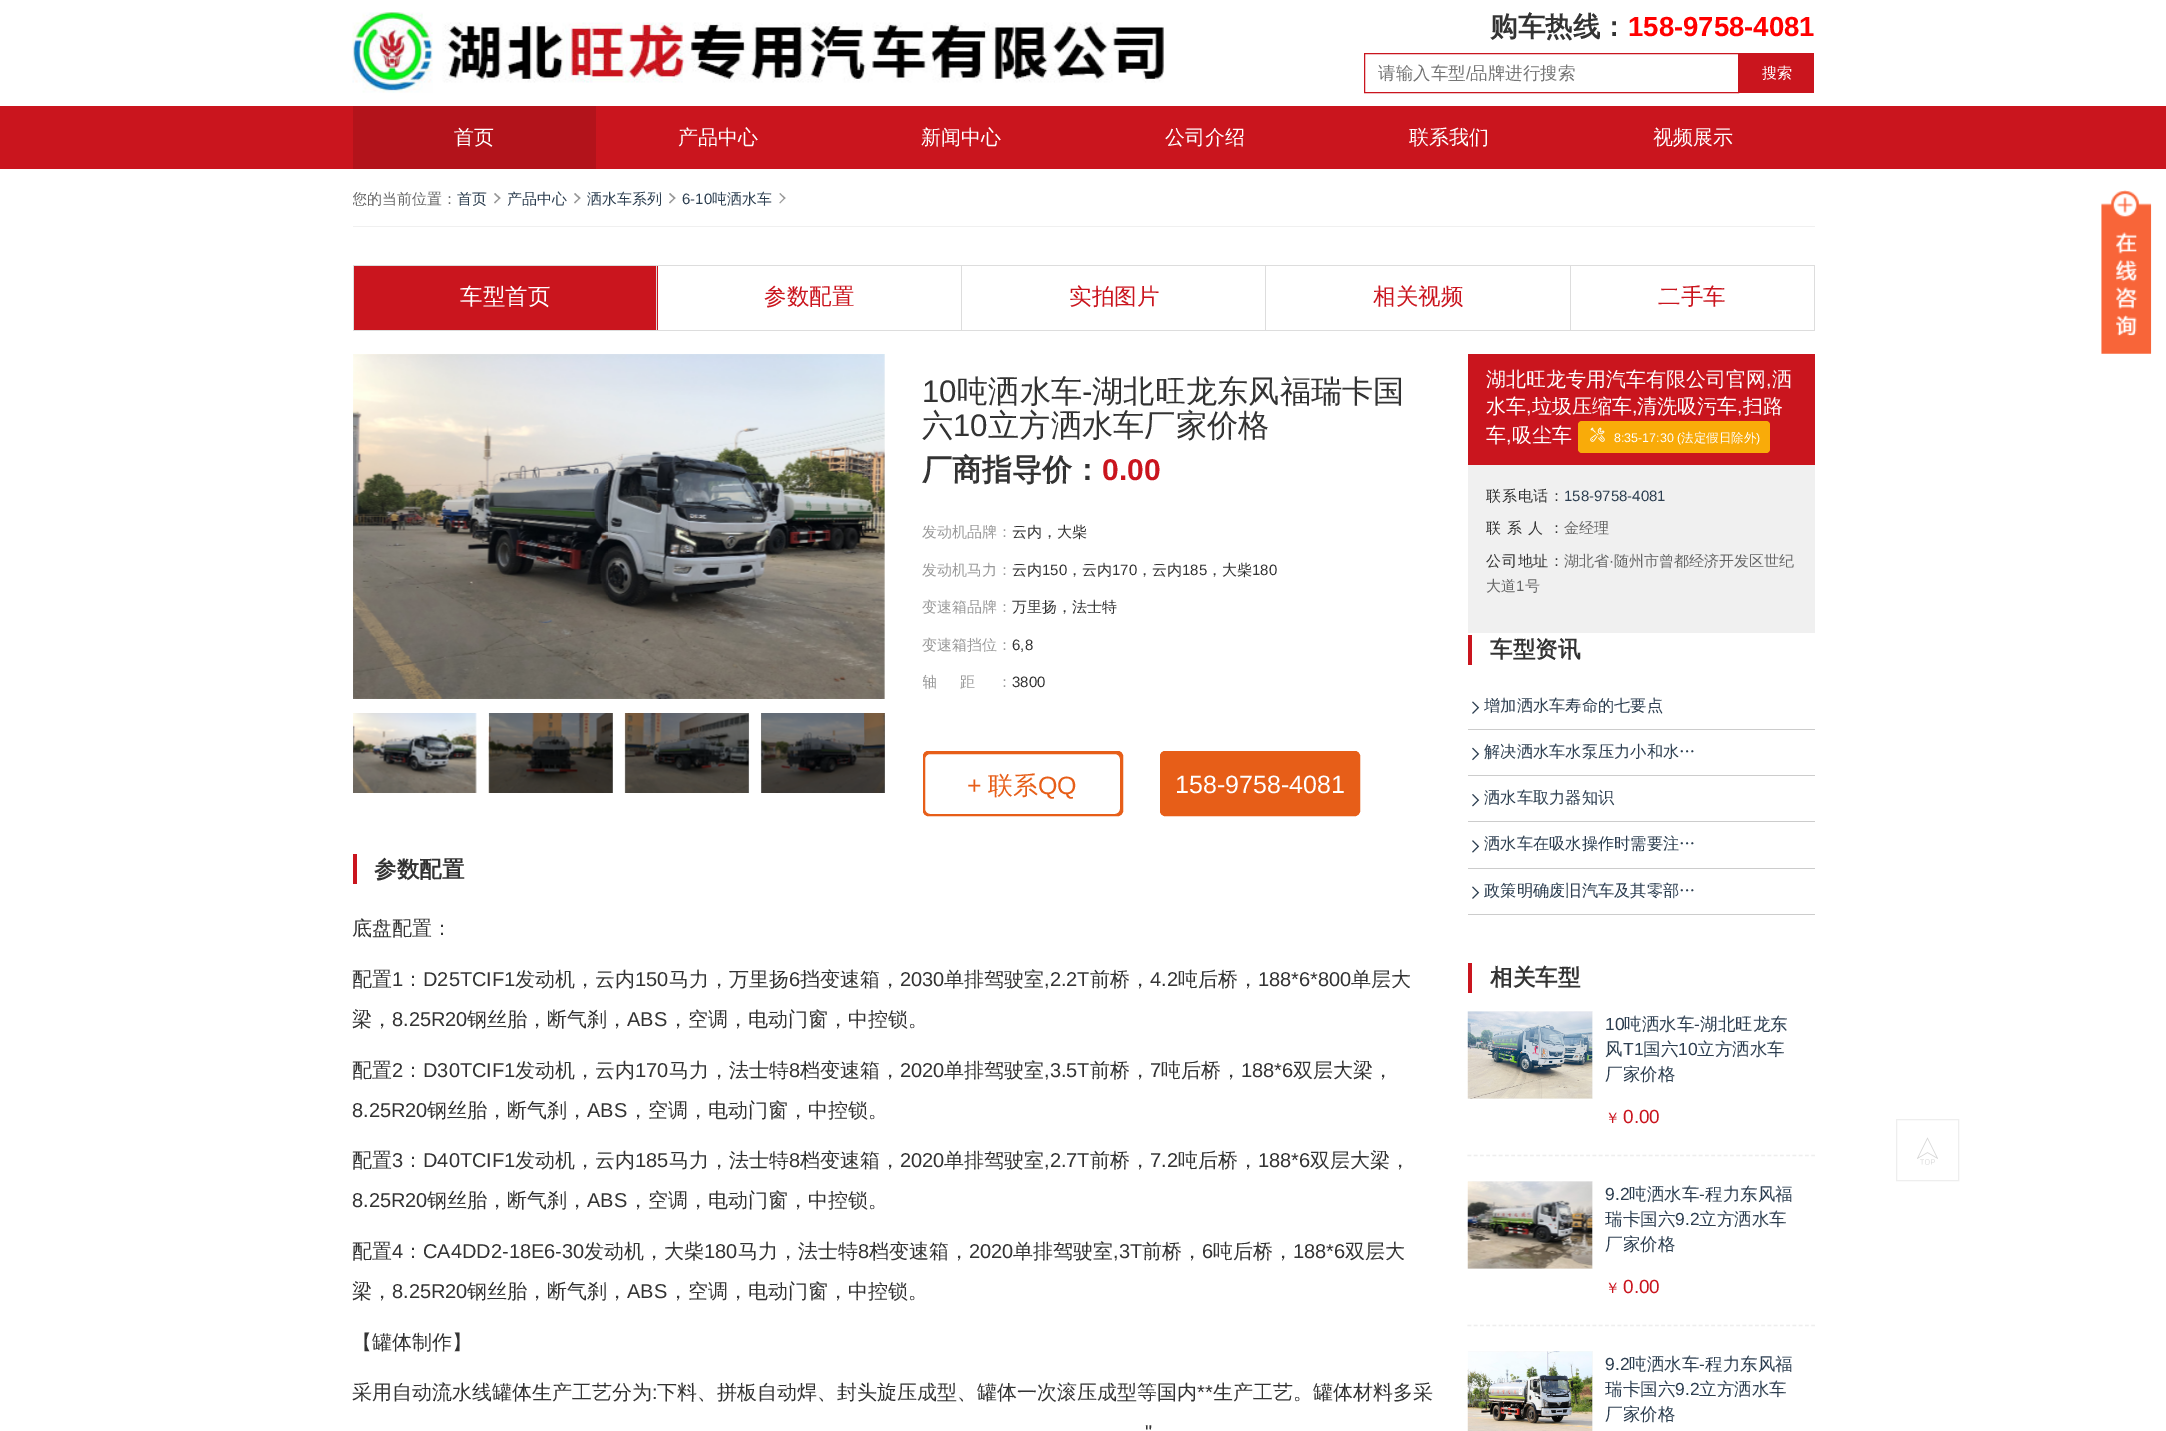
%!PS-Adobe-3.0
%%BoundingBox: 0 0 2166 1431
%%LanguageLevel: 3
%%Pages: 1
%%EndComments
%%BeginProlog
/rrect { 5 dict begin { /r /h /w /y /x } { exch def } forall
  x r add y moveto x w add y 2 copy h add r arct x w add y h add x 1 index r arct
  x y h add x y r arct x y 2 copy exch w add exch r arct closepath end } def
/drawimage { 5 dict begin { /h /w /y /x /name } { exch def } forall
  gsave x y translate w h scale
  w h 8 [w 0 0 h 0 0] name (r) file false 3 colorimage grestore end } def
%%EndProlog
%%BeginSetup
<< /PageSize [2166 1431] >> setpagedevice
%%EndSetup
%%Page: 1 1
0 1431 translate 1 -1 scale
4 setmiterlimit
1 setgray
0 0 2166 1431 rectfill
(images/1.raw) 352 12 812 81 drawimage
0.792 0.082 0.118 setrgbcolor
1364.5 53.5 374 39 rectstroke
1739 53 75 40 rectfill
0 106 2166 63 rectfill
0.702 0.075 0.106 setrgbcolor
353 106 243 63 rectfill
0.941 setgray
353 226 1462 1 rectfill
0.6 setgray
newpath 495 193 moveto 500.5 198 lineto 499.5 199 lineto 494 194 lineto closepath fill
newpath 499.5 197.5 moveto 500.5 198 lineto 495 203.5 lineto 494 202.5 lineto closepath fill
newpath 575 193 moveto 580.5 198 lineto 579.5 199 lineto 574 194 lineto closepath fill
newpath 579.5 197.5 moveto 580.5 198 lineto 575 203.5 lineto 574 202.5 lineto closepath fill
newpath 670 193 moveto 675.5 198 lineto 674.5 199 lineto 669 194 lineto closepath fill
newpath 674.5 197.5 moveto 675.5 198 lineto 670 203.5 lineto 669 202.5 lineto closepath fill
newpath 780 193 moveto 785.5 198 lineto 784.5 199 lineto 779.5 194 lineto closepath fill
newpath 784.5 197.5 moveto 785.5 198 lineto 780 203.5 lineto 779.5 202.5 lineto closepath fill
0.792 0.082 0.118 setrgbcolor
354 266 304 64 rectfill
0.867 setgray
1570 265 245 1 rectfill
1814 265 1 66 rectfill
1570 330 245 1 rectfill
1570 265 1 66 rectfill
1265 265 306 1 rectfill
1265 330 306 1 rectfill
1265 265 1 66 rectfill
961 265 305 1 rectfill
961 330 305 1 rectfill
961 265 1 66 rectfill
656 265 307 1 rectfill
656 330 307 1 rectfill
656 265 1 66 rectfill
353 265 305 1 rectfill
353 330 305 1 rectfill
353 265 1 66 rectfill
0.969 setgray
884 354 1 345 rectfill
(images/2.raw) 353 354 532 345 drawimage
(images/3.raw) 353 713 124 80 drawimage
0.486 setgray
489 713 124 80 rectfill
(images/4.raw) 488 713 125 80 drawimage
625 713 124 80 rectfill
(images/5.raw) 624 713 126 80 drawimage
761 713 124 80 rectfill
(images/6.raw) 760 713 125 80 drawimage
0.906 0.369 0.094 setrgbcolor
923.5 751.5 199 64 4.5 rrect gsave fill grestore
stroke
1 setgray
924.5 753.5 196 61 5.5 rrect gsave fill grestore
0.906 0.369 0.094 setrgbcolor
stroke
1160.5 751.5 199 64 4.5 rrect gsave fill grestore
stroke
0.792 0.082 0.118 setrgbcolor
353 854 4 30 rectfill
1468 354 347 111 rectfill
0.976 0.671 0.035 setrgbcolor
1578 421 192 32 4 rrect fill
(images/7.raw) 1590 427 15 15 drawimage
0.941 setgray
1468 465 347 168 rectfill
0.792 0.082 0.118 setrgbcolor
1468 635 4 30 rectfill
0.8 setgray
1468 729 347 1 rectfill
(images/8.raw) 1472 701 8 13 drawimage
1468 775 347 1 rectfill
(images/9.raw) 1472 747 8 14 drawimage
1468 821 347 1 rectfill
(images/10.raw) 1472 794 8 13 drawimage
1468 868 347 1 rectfill
(images/11.raw) 1472 840 8 13 drawimage
1468 914 347 1 rectfill
(images/8.raw) 1472 886 8 13 drawimage
0.792 0.082 0.118 setrgbcolor
1468 963 4 30 rectfill
0.933 setgray
1.2 setlinewidth
[3.75 2.5] 0 setdash
newpath 1467.5 1155.5 moveto 1815 1155.5 lineto stroke
0.969 setgray
1468 1011 125 88 rectfill
(images/12.raw) 1467 1011 126 88 drawimage
0.933 setgray
newpath 1467.5 1325.5 moveto 1815 1325.5 lineto stroke
0.969 setgray
1468 1181 125 88 rectfill
(images/13.raw) 1467 1181 126 88 drawimage
1468 1351 125 80 rectfill
(images/14.raw) 1467 1351 126 80 drawimage
0.933 setgray
1 setlinewidth
[] 0 setdash
1896.5 1119.5 62 61 rectstroke
(images/15.raw) 1917 1137 21 28 drawimage
(images/16.raw) 2101 190 51 164 drawimage
/WenQuanYiZenHei-Bold [27.5 0 0 -27.5 0 0] selectfont
0.2 setgray
1490 36 moveto (购车热线：) show
/LiberationSans-Bold [27.5 0 0 -27.5 0 0] selectfont
1 0 0 setrgbcolor
1628 36 moveto (158-9758-4081) show
/WenQuanYiZenHei-Medium [17.5 0 0 -17.5 0 0] selectfont
0.459 setgray
1378 79 moveto (请输入车型) show
/LiberationSans-Regular [17.5 0 0 -17.5 0 0] selectfont
1466 79 moveto (/) show
/WenQuanYiZenHei-Medium [17.5 0 0 -17.5 0 0] selectfont
1470 79 moveto (品牌进行搜索) show
/WenQuanYiZenHei-Medium [15 0 0 -15 0 0] selectfont
1 setgray
1762 78 moveto (搜索) show
/WenQuanYiZenHei-Medium [20 0 0 -20 0 0] selectfont
454 144 moveto (首页) show
678 144 moveto (产品中心) show
921 144 moveto (新闻中心) show
1165 144 moveto (公司介绍) show
1409 144 moveto (联系我们) show
1653 144 moveto (视频展示) show
gsave
353 173 1000 40 rectclip
/WenQuanYiZenHei-Medium [15 0 0 -15 0 0] selectfont
0.4 setgray
352 204 moveto (您的当前位置：) show
grestore
/WenQuanYiZenHei-Medium [15 0 0 -15 0 0] selectfont
0.173 0.243 0.314 setrgbcolor
457 204 moveto (首页) show
507 204 moveto (产品中心) show
587 204 moveto (洒水车系列) show
/LiberationSans-Regular [15 0 0 -15 0 0] selectfont
682 204 moveto (6-10) show
/WenQuanYiZenHei-Medium [15 0 0 -15 0 0] selectfont
712 204 moveto (吨洒水车) show
/WenQuanYiZenHei-Medium [22.5 0 0 -22.5 0 0] selectfont
1 setgray
460 304 moveto (车型首页) show
0.792 0.082 0.118 setrgbcolor
764 304 moveto (参数配置) show
1069 304 moveto (实拍图片) show
1373 304 moveto (相关视频) show
1658 304 moveto (二手车) show
/LiberationSans-Regular [31.25 0 0 -31.25 0 0] selectfont
0.2 setgray
922 402 moveto (10) show
/WenQuanYiZenHei-Medium [31.25 0 0 -31.25 0 0] selectfont
957 402 moveto (吨洒水车) show
/LiberationSans-Regular [31.25 0 0 -31.25 0 0] selectfont
1082 402 moveto (-) show
/WenQuanYiZenHei-Medium [31.25 0 0 -31.25 0 0] selectfont
1092 402 moveto (湖北旺龙东风福瑞卡国) show
922 436 moveto (六) show
/LiberationSans-Regular [31.25 0 0 -31.25 0 0] selectfont
953 436 moveto (10) show
/WenQuanYiZenHei-Medium [31.25 0 0 -31.25 0 0] selectfont
988 436 moveto (立方洒水车厂家价格) show
/WenQuanYiZenHei-Bold [30 0 0 -30 0 0] selectfont
922 480 moveto (厂商指导价：) show
/LiberationSans-Bold [30 0 0 -30 0 0] selectfont
0.792 0.082 0.118 setrgbcolor
1102 480 moveto (0.00) show
/WenQuanYiZenHei-Medium [15 0 0 -15 0 0] selectfont
0.6 setgray
922 537 moveto (发动机品牌：) show
0.2 setgray
1012 537 moveto (云内，大柴) show
0.6 setgray
922 575 moveto (发动机马力：) show
0.2 setgray
1012 575 moveto (云内) show
/LiberationSans-Regular [15 0 0 -15 0 0] selectfont
1042 575 moveto (150) show
/WenQuanYiZenHei-Medium [15 0 0 -15 0 0] selectfont
1067 575 moveto (，云内) show
/LiberationSans-Regular [15 0 0 -15 0 0] selectfont
1112 575 moveto (170) show
/WenQuanYiZenHei-Medium [15 0 0 -15 0 0] selectfont
1137 575 moveto (，云内) show
/LiberationSans-Regular [15 0 0 -15 0 0] selectfont
1182 575 moveto (185) show
/WenQuanYiZenHei-Medium [15 0 0 -15 0 0] selectfont
1207 575 moveto (，大柴) show
/LiberationSans-Regular [15 0 0 -15 0 0] selectfont
1252 575 moveto (180) show
/WenQuanYiZenHei-Medium [15 0 0 -15 0 0] selectfont
0.6 setgray
922 612 moveto (变速箱品牌：) show
0.2 setgray
1012 612 moveto (万里扬，法士特) show
0.6 setgray
922 650 moveto (变速箱挡位：) show
/LiberationSans-Regular [15 0 0 -15 0 0] selectfont
0.2 setgray
1012 650 moveto (6,8) show
gsave
923 673 90 42 rectclip
/WenQuanYiZenHei-Medium [15 0 0 -15 0 0] selectfont
0.6 setgray
922 687 moveto 22.5 0 (轴距：) ashow
grestore
1012 687 moveto (3800) show
/LiberationSans-Regular [25 0 0 -25 0 0] selectfont
0.906 0.369 0.094 setrgbcolor
967 794 moveto (+) show
/WenQuanYiZenHei-Medium [25 0 0 -25 0 0] selectfont
988 794 moveto (联系) show
/LiberationSans-Regular [25 0 0 -25 0 0] selectfont
1038 794 moveto (QQ) show
1 setgray
1175 793 moveto (158-9758-4081) show
/WenQuanYiZenHei-Bold [22.5 0 0 -22.5 0 0] selectfont
0.2 setgray
374 877 moveto (参数配置) show
/WenQuanYiZenHei-Medium [20 0 0 -20 0 0] selectfont
352 935 moveto (底盘配置：) show
352 986 moveto (配置) show
/LiberationSans-Regular [20 0 0 -20 0 0] selectfont
392 986 moveto (1) show
/WenQuanYiZenHei-Medium [20 0 0 -20 0 0] selectfont
403 986 moveto (：) show
/LiberationSans-Regular [20 0 0 -20 0 0] selectfont
423 986 moveto (D25TCIF1) show
/WenQuanYiZenHei-Medium [20 0 0 -20 0 0] selectfont
515 986 moveto (发动机，云内) show
/LiberationSans-Regular [20 0 0 -20 0 0] selectfont
635 986 moveto (150) show
/WenQuanYiZenHei-Medium [20 0 0 -20 0 0] selectfont
669 986 moveto (马力，万里扬) show
/LiberationSans-Regular [20 0 0 -20 0 0] selectfont
789 986 moveto (6) show
/WenQuanYiZenHei-Medium [20 0 0 -20 0 0] selectfont
800 986 moveto (挡变速箱，) show
/LiberationSans-Regular [20 0 0 -20 0 0] selectfont
900 986 moveto (2030) show
/WenQuanYiZenHei-Medium [20 0 0 -20 0 0] selectfont
944 986 moveto (单排驾驶室) show
/LiberationSans-Regular [20 0 0 -20 0 0] selectfont
1044 986 moveto (,2.2T) show
/WenQuanYiZenHei-Medium [20 0 0 -20 0 0] selectfont
1090 986 moveto (前桥，) show
/LiberationSans-Regular [20 0 0 -20 0 0] selectfont
1150 986 moveto (4.2) show
/WenQuanYiZenHei-Medium [20 0 0 -20 0 0] selectfont
1178 986 moveto (吨后桥，) show
/LiberationSans-Regular [20 0 0 -20 0 0] selectfont
1258 986 moveto (188*6*800) show
/WenQuanYiZenHei-Medium [20 0 0 -20 0 0] selectfont
1351 986 moveto (单层大) show
352 1026 moveto (梁，) show
/LiberationSans-Regular [20 0 0 -20 0 0] selectfont
392 1026 moveto (8.25R20) show
/WenQuanYiZenHei-Medium [20 0 0 -20 0 0] selectfont
467 1026 moveto (钢丝胎，断气刹，) show
/LiberationSans-Regular [20 0 0 -20 0 0] selectfont
627 1026 moveto (ABS) show
/WenQuanYiZenHei-Medium [20 0 0 -20 0 0] selectfont
668 1026 moveto (，空调，电动门窗，中控锁。) show
352 1077 moveto (配置) show
/LiberationSans-Regular [20 0 0 -20 0 0] selectfont
392 1077 moveto (2) show
/WenQuanYiZenHei-Medium [20 0 0 -20 0 0] selectfont
403 1077 moveto (：) show
/LiberationSans-Regular [20 0 0 -20 0 0] selectfont
423 1077 moveto (D30TCIF1) show
/WenQuanYiZenHei-Medium [20 0 0 -20 0 0] selectfont
515 1077 moveto (发动机，云内) show
/LiberationSans-Regular [20 0 0 -20 0 0] selectfont
635 1077 moveto (170) show
/WenQuanYiZenHei-Medium [20 0 0 -20 0 0] selectfont
669 1077 moveto (马力，法士特) show
/LiberationSans-Regular [20 0 0 -20 0 0] selectfont
789 1077 moveto (8) show
/WenQuanYiZenHei-Medium [20 0 0 -20 0 0] selectfont
800 1077 moveto (档变速箱，) show
/LiberationSans-Regular [20 0 0 -20 0 0] selectfont
900 1077 moveto (2020) show
/WenQuanYiZenHei-Medium [20 0 0 -20 0 0] selectfont
944 1077 moveto (单排驾驶室) show
/LiberationSans-Regular [20 0 0 -20 0 0] selectfont
1044 1077 moveto (,3.5T) show
/WenQuanYiZenHei-Medium [20 0 0 -20 0 0] selectfont
1090 1077 moveto (前桥，) show
/LiberationSans-Regular [20 0 0 -20 0 0] selectfont
1150 1077 moveto (7) show
/WenQuanYiZenHei-Medium [20 0 0 -20 0 0] selectfont
1161 1077 moveto (吨后桥，) show
/LiberationSans-Regular [20 0 0 -20 0 0] selectfont
1241 1077 moveto (188*6) show
/WenQuanYiZenHei-Medium [20 0 0 -20 0 0] selectfont
1293 1077 moveto (双层大梁，) show
/LiberationSans-Regular [20 0 0 -20 0 0] selectfont
352 1117 moveto (8.25R20) show
/WenQuanYiZenHei-Medium [20 0 0 -20 0 0] selectfont
427 1117 moveto (钢丝胎，断气刹，) show
/LiberationSans-Regular [20 0 0 -20 0 0] selectfont
587 1117 moveto (ABS) show
/WenQuanYiZenHei-Medium [20 0 0 -20 0 0] selectfont
628 1117 moveto (，空调，电动门窗，中控锁。) show
352 1167 moveto (配置) show
/LiberationSans-Regular [20 0 0 -20 0 0] selectfont
392 1167 moveto (3) show
/WenQuanYiZenHei-Medium [20 0 0 -20 0 0] selectfont
403 1167 moveto (：) show
/LiberationSans-Regular [20 0 0 -20 0 0] selectfont
423 1167 moveto (D40TCIF1) show
/WenQuanYiZenHei-Medium [20 0 0 -20 0 0] selectfont
515 1167 moveto (发动机，云内) show
/LiberationSans-Regular [20 0 0 -20 0 0] selectfont
635 1167 moveto (185) show
/WenQuanYiZenHei-Medium [20 0 0 -20 0 0] selectfont
669 1167 moveto (马力，法士特) show
/LiberationSans-Regular [20 0 0 -20 0 0] selectfont
789 1167 moveto (8) show
/WenQuanYiZenHei-Medium [20 0 0 -20 0 0] selectfont
800 1167 moveto (档变速箱，) show
/LiberationSans-Regular [20 0 0 -20 0 0] selectfont
900 1167 moveto (2020) show
/WenQuanYiZenHei-Medium [20 0 0 -20 0 0] selectfont
944 1167 moveto (单排驾驶室) show
/LiberationSans-Regular [20 0 0 -20 0 0] selectfont
1044 1167 moveto (,2.7T) show
/WenQuanYiZenHei-Medium [20 0 0 -20 0 0] selectfont
1090 1167 moveto (前桥，) show
/LiberationSans-Regular [20 0 0 -20 0 0] selectfont
1150 1167 moveto (7.2) show
/WenQuanYiZenHei-Medium [20 0 0 -20 0 0] selectfont
1178 1167 moveto (吨后桥，) show
/LiberationSans-Regular [20 0 0 -20 0 0] selectfont
1258 1167 moveto (188*6) show
/WenQuanYiZenHei-Medium [20 0 0 -20 0 0] selectfont
1310 1167 moveto (双层大梁，) show
/LiberationSans-Regular [20 0 0 -20 0 0] selectfont
352 1207 moveto (8.25R20) show
/WenQuanYiZenHei-Medium [20 0 0 -20 0 0] selectfont
427 1207 moveto (钢丝胎，断气刹，) show
/LiberationSans-Regular [20 0 0 -20 0 0] selectfont
587 1207 moveto (ABS) show
/WenQuanYiZenHei-Medium [20 0 0 -20 0 0] selectfont
628 1207 moveto (，空调，电动门窗，中控锁。) show
352 1258 moveto (配置) show
/LiberationSans-Regular [20 0 0 -20 0 0] selectfont
392 1258 moveto (4) show
/WenQuanYiZenHei-Medium [20 0 0 -20 0 0] selectfont
403 1258 moveto (：) show
/LiberationSans-Regular [20 0 0 -20 0 0] selectfont
423 1258 moveto (CA4DD2-18E6-30) show
/WenQuanYiZenHei-Medium [20 0 0 -20 0 0] selectfont
584 1258 moveto (发动机，大柴) show
/LiberationSans-Regular [20 0 0 -20 0 0] selectfont
704 1258 moveto (180) show
/WenQuanYiZenHei-Medium [20 0 0 -20 0 0] selectfont
738 1258 moveto (马力，法士特) show
/LiberationSans-Regular [20 0 0 -20 0 0] selectfont
858 1258 moveto (8) show
/WenQuanYiZenHei-Medium [20 0 0 -20 0 0] selectfont
869 1258 moveto (档变速箱，) show
/LiberationSans-Regular [20 0 0 -20 0 0] selectfont
969 1258 moveto (2020) show
/WenQuanYiZenHei-Medium [20 0 0 -20 0 0] selectfont
1013 1258 moveto (单排驾驶室) show
/LiberationSans-Regular [20 0 0 -20 0 0] selectfont
1113 1258 moveto (,3T) show
/WenQuanYiZenHei-Medium [20 0 0 -20 0 0] selectfont
1142 1258 moveto (前桥，) show
/LiberationSans-Regular [20 0 0 -20 0 0] selectfont
1202 1258 moveto (6) show
/WenQuanYiZenHei-Medium [20 0 0 -20 0 0] selectfont
1213 1258 moveto (吨后桥，) show
/LiberationSans-Regular [20 0 0 -20 0 0] selectfont
1293 1258 moveto (188*6) show
/WenQuanYiZenHei-Medium [20 0 0 -20 0 0] selectfont
1345 1258 moveto (双层大) show
352 1298 moveto (梁，) show
/LiberationSans-Regular [20 0 0 -20 0 0] selectfont
392 1298 moveto (8.25R20) show
/WenQuanYiZenHei-Medium [20 0 0 -20 0 0] selectfont
467 1298 moveto (钢丝胎，断气刹，) show
/LiberationSans-Regular [20 0 0 -20 0 0] selectfont
627 1298 moveto (ABS) show
/WenQuanYiZenHei-Medium [20 0 0 -20 0 0] selectfont
668 1298 moveto (，空调，电动门窗，中控锁。) show
352 1349 moveto (【罐体制作】) show
352 1399 moveto (采用自动流水线罐体生产工艺分为) show
/LiberationSans-Regular [20 0 0 -20 0 0] selectfont
652 1399 moveto (:) show
/WenQuanYiZenHei-Medium [20 0 0 -20 0 0] selectfont
657 1399 moveto (下料、拼板自动焊、封头旋压成型、罐体一次滚压成型等国内) show
/LiberationSans-Regular [20 0 0 -20 0 0] selectfont
1197 1399 moveto (**) show
/WenQuanYiZenHei-Medium [20 0 0 -20 0 0] selectfont
1213 1399 moveto (生产工艺。罐体材料多采) show
/LiberationSans-Regular [20 0 0 -20 0 0] selectfont
1145 1439 moveto (") show
/WenQuanYiZenHei-Medium [20 0 0 -20 0 0] selectfont
1 setgray
1486 386 moveto (湖北旺龙专用汽车有限公司官网) show
/LiberationSans-Regular [20 0 0 -20 0 0] selectfont
1766 386 moveto (,) show
/WenQuanYiZenHei-Medium [20 0 0 -20 0 0] selectfont
1772 386 moveto (洒) show
1486 413 moveto (水车) show
/LiberationSans-Regular [20 0 0 -20 0 0] selectfont
1526 413 moveto (,) show
/WenQuanYiZenHei-Medium [20 0 0 -20 0 0] selectfont
1532 413 moveto (垃圾压缩车) show
/LiberationSans-Regular [20 0 0 -20 0 0] selectfont
1632 413 moveto (,) show
/WenQuanYiZenHei-Medium [20 0 0 -20 0 0] selectfont
1637 413 moveto (清洗吸污车) show
/LiberationSans-Regular [20 0 0 -20 0 0] selectfont
1737 413 moveto (,) show
/WenQuanYiZenHei-Medium [20 0 0 -20 0 0] selectfont
1743 413 moveto (扫路) show
1486 442 moveto (车) show
/LiberationSans-Regular [20 0 0 -20 0 0] selectfont
1506 442 moveto (,) show
/WenQuanYiZenHei-Medium [20 0 0 -20 0 0] selectfont
1512 442 moveto (吸尘车) show
/LiberationSans-Regular [12.5 0 0 -12.5 0 0] selectfont
1614 442 moveto (8:35-17:30 \() show
/WenQuanYiZenHei-Medium [12.5 0 0 -12.5 0 0] selectfont
1681 442 moveto (法定假日除外) show
/LiberationSans-Regular [12.5 0 0 -12.5 0 0] selectfont
1756 442 moveto (\)) show
/WenQuanYiZenHei-Medium [15 0 0 -15 0 0] selectfont
0.2 setgray
1486 501 moveto 0.75 0 (联系电话：) ashow
/LiberationSans-Regular [15 0 0 -15 0 0] selectfont
0.173 0.243 0.314 setrgbcolor
1564 501 moveto (158-9758-4081) show
/WenQuanYiZenHei-Medium [15 0 0 -15 0 0] selectfont
0.2 setgray
1486 533 moveto 6 0 (联系人：) ashow
0.4 setgray
1564 533 moveto (金经理) show
0.2 setgray
1486 566 moveto 0.75 0 (公司地址：) ashow
0.4 setgray
1564 566 moveto (湖北省) show
/LiberationSans-Regular [15 0 0 -15 0 0] selectfont
1609 566 moveto (·) show
/WenQuanYiZenHei-Medium [15 0 0 -15 0 0] selectfont
1614 566 moveto (随州市曾都经济开发区世纪) show
1486 591 moveto (大道) show
/LiberationSans-Regular [15 0 0 -15 0 0] selectfont
1516 591 moveto (1) show
/WenQuanYiZenHei-Medium [15 0 0 -15 0 0] selectfont
1525 591 moveto (号) show
/WenQuanYiZenHei-Bold [22.5 0 0 -22.5 0 0] selectfont
0.2 setgray
1490 657 moveto (车型资讯) show
/WenQuanYiZenHei-Medium [16.25 0 0 -16.25 0 0] selectfont
0.173 0.243 0.314 setrgbcolor
1484 711 moveto (增加洒水车寿命的七要点) show
1484 757 moveto (解决洒水车水泵压力小和水…) show
1484 803 moveto (洒水车取力器知识) show
1484 849 moveto (洒水车在吸水操作时需要注…) show
1484 896 moveto (政策明确废旧汽车及其零部…) show
/WenQuanYiZenHei-Bold [22.5 0 0 -22.5 0 0] selectfont
0.2 setgray
1490 985 moveto (相关车型) show
/LiberationSans-Regular [17.5 0 0 -17.5 0 0] selectfont
0.173 0.243 0.314 setrgbcolor
1605 1030 moveto (10) show
/WenQuanYiZenHei-Medium [17.5 0 0 -17.5 0 0] selectfont
1624 1030 moveto (吨洒水车) show
/LiberationSans-Regular [17.5 0 0 -17.5 0 0] selectfont
1694 1030 moveto (-) show
/WenQuanYiZenHei-Medium [17.5 0 0 -17.5 0 0] selectfont
1700 1030 moveto (湖北旺龙东) show
1605 1055 moveto (风) show
/LiberationSans-Regular [17.5 0 0 -17.5 0 0] selectfont
1623 1055 moveto (T1) show
/WenQuanYiZenHei-Medium [17.5 0 0 -17.5 0 0] selectfont
1643 1055 moveto (国六) show
/LiberationSans-Regular [17.5 0 0 -17.5 0 0] selectfont
1678 1055 moveto (10) show
/WenQuanYiZenHei-Medium [17.5 0 0 -17.5 0 0] selectfont
1697 1055 moveto (立方洒水车) show
1605 1080 moveto (厂家价格) show
/WenQuanYiZenHei-Medium [15 0 0 -15 0 0] selectfont
0.792 0.082 0.118 setrgbcolor
1605 1123 moveto (￥) show
/LiberationSans-Regular [19 0 0 -19 0 0] selectfont
1623 1123 moveto (0.00) show
/LiberationSans-Regular [17.5 0 0 -17.5 0 0] selectfont
0.173 0.243 0.314 setrgbcolor
1605 1200 moveto (9.2) show
/WenQuanYiZenHei-Medium [17.5 0 0 -17.5 0 0] selectfont
1629 1200 moveto (吨洒水车) show
/LiberationSans-Regular [17.5 0 0 -17.5 0 0] selectfont
1699 1200 moveto (-) show
/WenQuanYiZenHei-Medium [17.5 0 0 -17.5 0 0] selectfont
1705 1200 moveto (程力东风福) show
1605 1225 moveto (瑞卡国六) show
/LiberationSans-Regular [17.5 0 0 -17.5 0 0] selectfont
1675 1225 moveto (9.2) show
/WenQuanYiZenHei-Medium [17.5 0 0 -17.5 0 0] selectfont
1699 1225 moveto (立方洒水车) show
1605 1250 moveto (厂家价格) show
/WenQuanYiZenHei-Medium [15 0 0 -15 0 0] selectfont
0.792 0.082 0.118 setrgbcolor
1605 1293 moveto (￥) show
/LiberationSans-Regular [19 0 0 -19 0 0] selectfont
1623 1293 moveto (0.00) show
/LiberationSans-Regular [17.5 0 0 -17.5 0 0] selectfont
0.173 0.243 0.314 setrgbcolor
1605 1370 moveto (9.2) show
/WenQuanYiZenHei-Medium [17.5 0 0 -17.5 0 0] selectfont
1629 1370 moveto (吨洒水车) show
/LiberationSans-Regular [17.5 0 0 -17.5 0 0] selectfont
1699 1370 moveto (-) show
/WenQuanYiZenHei-Medium [17.5 0 0 -17.5 0 0] selectfont
1705 1370 moveto (程力东风福) show
1605 1395 moveto (瑞卡国六) show
/LiberationSans-Regular [17.5 0 0 -17.5 0 0] selectfont
1675 1395 moveto (9.2) show
/WenQuanYiZenHei-Medium [17.5 0 0 -17.5 0 0] selectfont
1699 1395 moveto (立方洒水车) show
1605 1420 moveto (厂家价格) show
showpage
%%EOF
